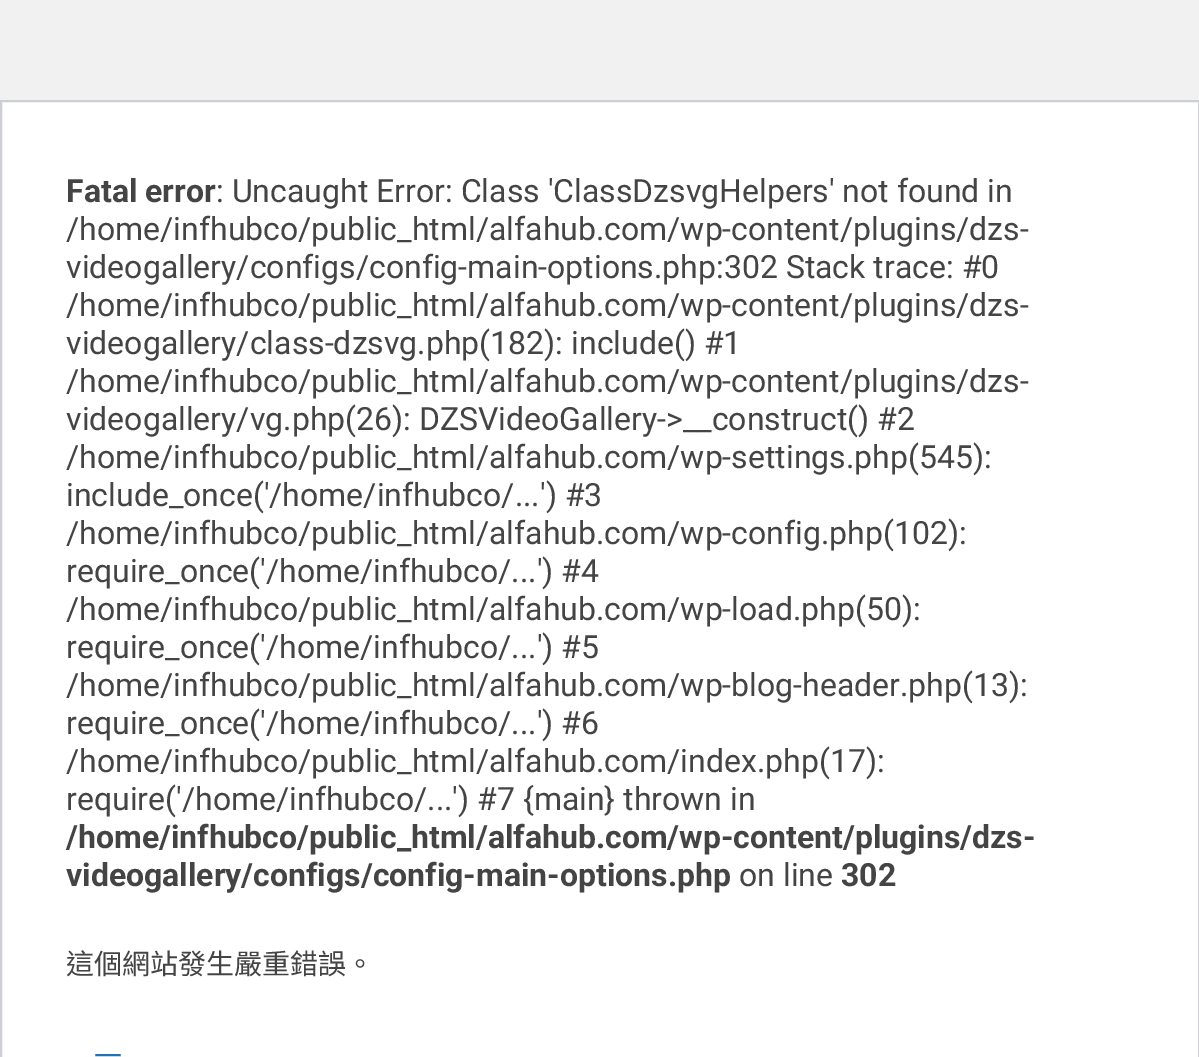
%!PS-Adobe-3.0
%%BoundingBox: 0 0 1199 1057
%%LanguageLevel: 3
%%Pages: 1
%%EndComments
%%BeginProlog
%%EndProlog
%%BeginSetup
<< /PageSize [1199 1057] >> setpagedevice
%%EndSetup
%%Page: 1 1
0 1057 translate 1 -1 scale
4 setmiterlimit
0.945 setgray
0 0 1199 1057 rectfill
1 setgray
newpath 1 101 moveto 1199 101 lineto 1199 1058 lineto 1 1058 lineto closepath gsave fill grestore
0.8 0.816 0.831 setrgbcolor
2 setlinewidth
stroke
/Roboto-Bold [32 0 0 -32 0 0] selectfont
0.267 setgray
66 202 moveto (Fatal error) show
/Roboto-Regular [32 0 0 -32 0 0] selectfont
216 202 moveto (: Uncaught Error: Class 'ClassDzsvgHelpers' not found in) show
66 240 moveto (/home/infhubco/public_html/alfahub.com/wp-content/plugins/dzs-) show
66 278 moveto (videogallery/configs/config-main-options.php:302 Stack trace: #0) show
66 316 moveto (/home/infhubco/public_html/alfahub.com/wp-content/plugins/dzs-) show
66 354 moveto (videogallery/class-dzsvg.php\(182\): include\(\) #1) show
66 392 moveto (/home/infhubco/public_html/alfahub.com/wp-content/plugins/dzs-) show
66 430 moveto (videogallery/vg.php\(26\): DZSVideoGallery->__construct\(\) #2) show
66 468 moveto (/home/infhubco/public_html/alfahub.com/wp-settings.php\(545\):) show
66 506 moveto (include_once\('/home/infhubco/...'\) #3) show
66 544 moveto (/home/infhubco/public_html/alfahub.com/wp-config.php\(102\):) show
66 582 moveto (require_once\('/home/infhubco/...'\) #4) show
66 620 moveto (/home/infhubco/public_html/alfahub.com/wp-load.php\(50\):) show
66 658 moveto (require_once\('/home/infhubco/...'\) #5) show
66 696 moveto (/home/infhubco/public_html/alfahub.com/wp-blog-header.php\(13\):) show
66 734 moveto (require_once\('/home/infhubco/...'\) #6) show
66 772 moveto (/home/infhubco/public_html/alfahub.com/index.php\(17\):) show
66 810 moveto (require\('/home/infhubco/...'\) #7 {main} thrown in) show
/Roboto-Bold [32 0 0 -32 0 0] selectfont
66 848 moveto (/home/infhubco/public_html/alfahub.com/wp-content/plugins/dzs-) show
66 886 moveto (videogallery/configs/config-main-options.php) show
/Roboto-Regular [32 0 0 -32 0 0] selectfont
739 886 moveto (on line) show
/Roboto-Bold [32 0 0 -32 0 0] selectfont
841 886 moveto (302) show
/NotoSansCJKTC-Regular [28 0 0 -28 0 0] selectfont
66 974 moveto (這個網站發生嚴重錯誤。) show
0.133 0.443 0.694 setrgbcolor
94 1066 moveto (一) show
showpage
%%EOF
